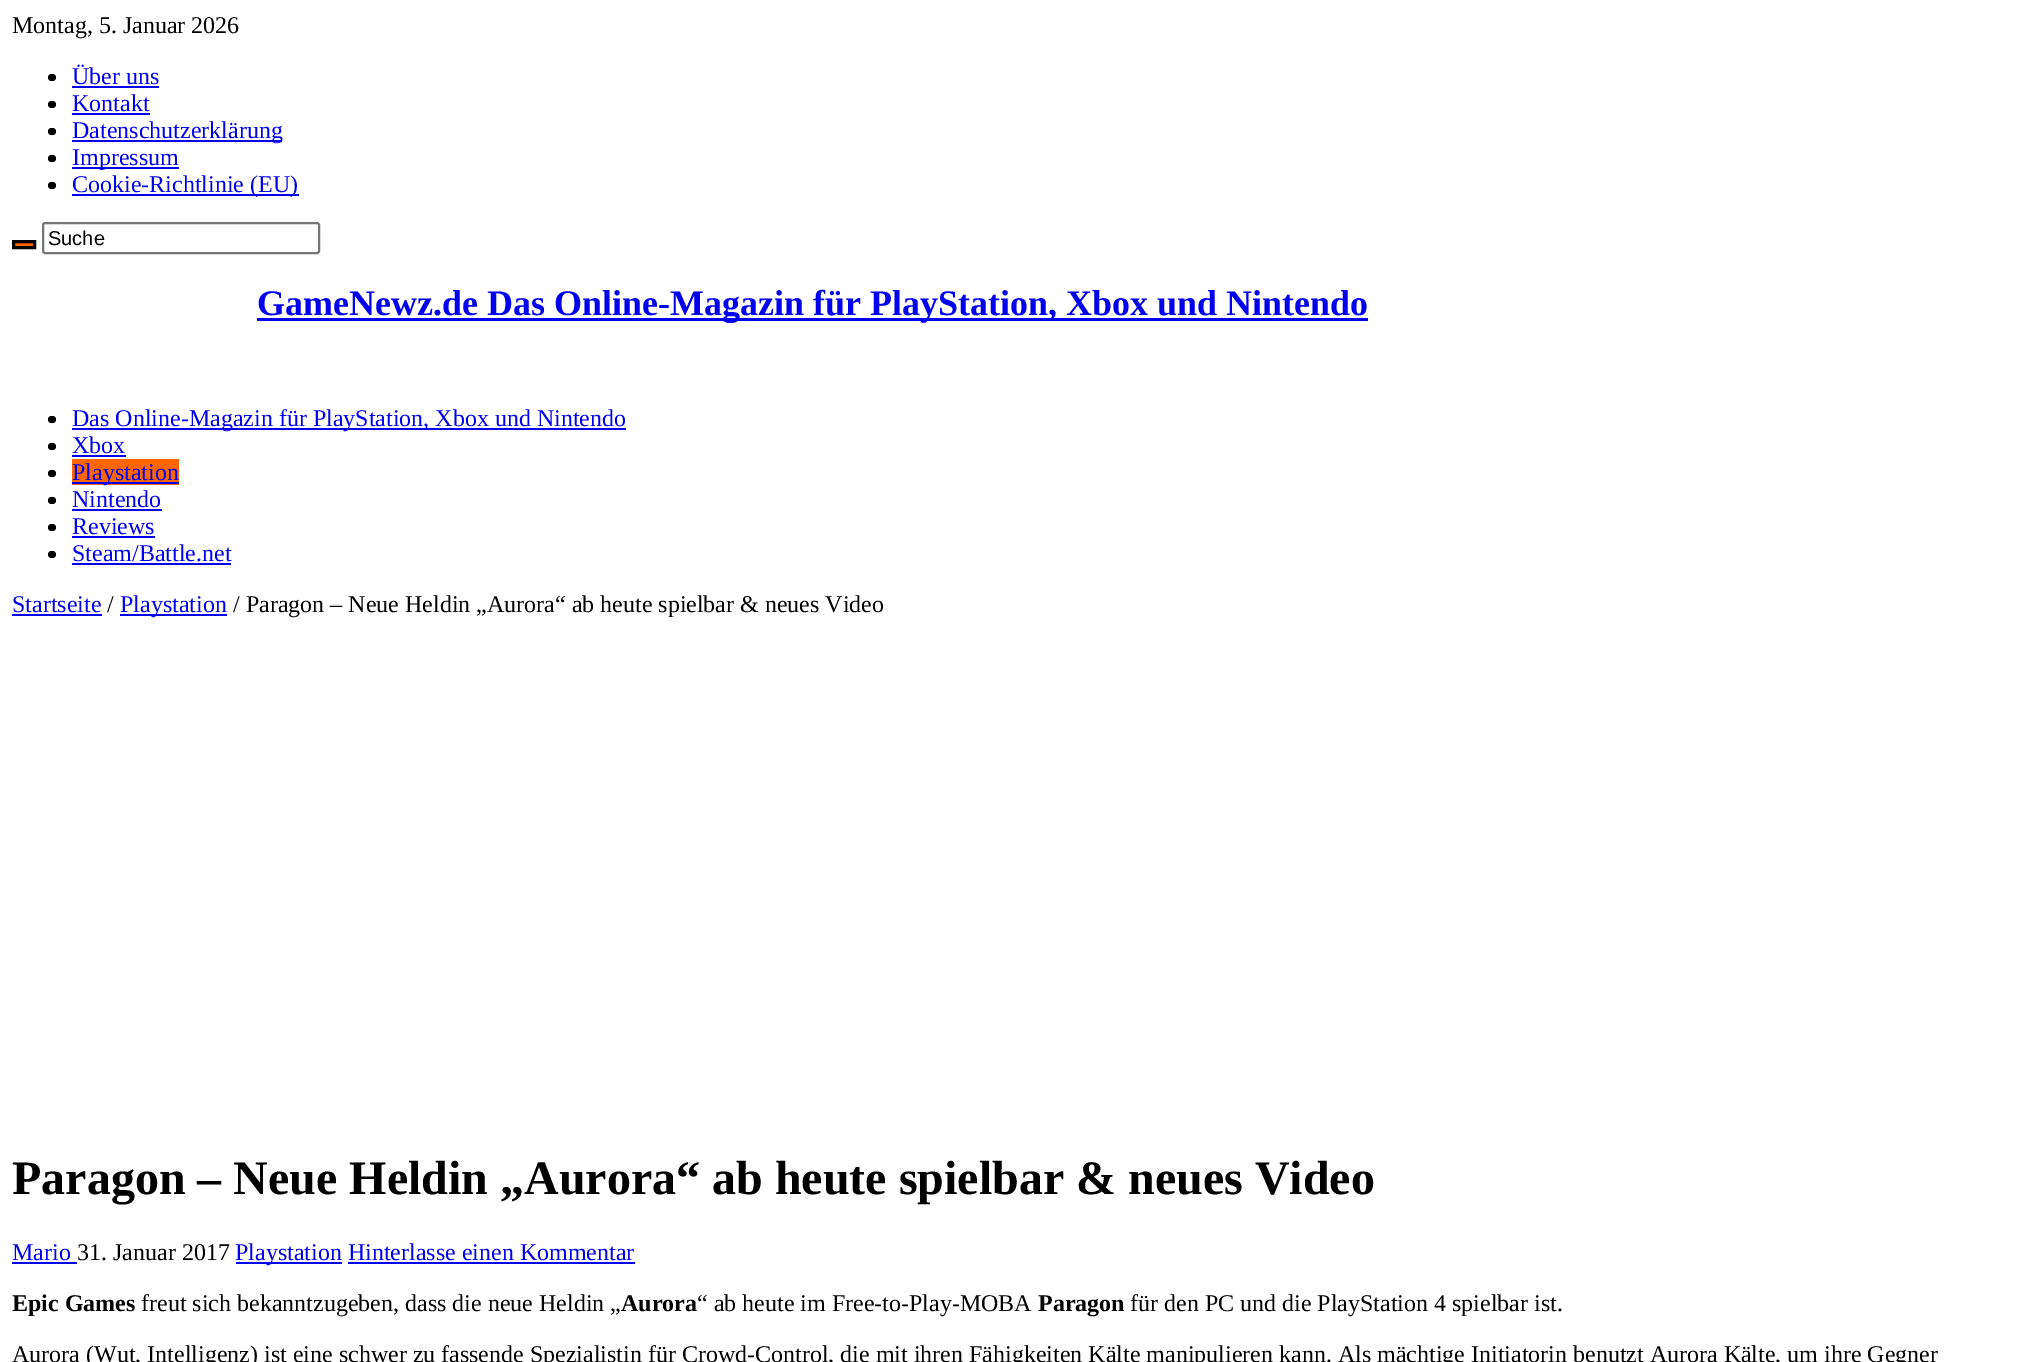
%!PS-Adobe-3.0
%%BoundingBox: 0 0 2033 1362
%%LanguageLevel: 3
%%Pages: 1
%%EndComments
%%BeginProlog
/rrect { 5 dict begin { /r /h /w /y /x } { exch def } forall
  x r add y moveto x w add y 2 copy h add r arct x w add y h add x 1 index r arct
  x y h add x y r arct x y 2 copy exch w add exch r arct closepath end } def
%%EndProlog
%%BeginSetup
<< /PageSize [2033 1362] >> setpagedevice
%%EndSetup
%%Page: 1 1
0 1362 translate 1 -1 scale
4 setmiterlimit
1 setgray
0 0 2033 1362 rectfill
0 setgray
48 74 8 7 3.5 rrect fill
0 0 0.933 setrgbcolor
72 86 87 2 rectfill
0 setgray
48 101 8 7 3.5 rrect fill
0 0 0.933 setrgbcolor
72 113 78 2 rectfill
0 setgray
48 128 8 7 3.5 rrect fill
0 0 0.933 setrgbcolor
72 140 210 2 rectfill
0 setgray
48 155 8 7 3.5 rrect fill
0 0 0.933 setrgbcolor
72 167 107 2 rectfill
0 setgray
48 182 8 7 3.5 rrect fill
0 0 0.933 setrgbcolor
72 194 227 2 rectfill
1 0.4 0 setrgbcolor
newpath 13.5 241.5 moveto 34.5 241.5 lineto 34.5 247.5 lineto 13.5 247.5 lineto closepath gsave fill grestore
0 setgray
3 setlinewidth
stroke
0.463 setgray
2 setlinewidth
43 223 276 30 2 rrect stroke
0 0 0.933 setrgbcolor
257 318 1111 3 rectfill
0 setgray
48 416 8 7 3.5 rrect fill
0 0 0.933 setrgbcolor
72 428 554 2 rectfill
0 setgray
48 443 8 7 3.5 rrect fill
0 0 0.933 setrgbcolor
72 455 54 2 rectfill
0 setgray
48 470 8 7 3.5 rrect fill
1 0.4 0 setrgbcolor
72 459 107 26 rectfill
0 0 0.933 setrgbcolor
72 482 107 2 rectfill
0 setgray
48 497 8 7 3.5 rrect fill
0 0 0.933 setrgbcolor
72 509 90 2 rectfill
0 setgray
48 524 8 7 3.5 rrect fill
0 0 0.933 setrgbcolor
72 536 83 2 rectfill
0 setgray
48 551 8 7 3.5 rrect fill
0 0 0.933 setrgbcolor
72 563 159 2 rectfill
12 614 90 2 rectfill
120 614 107 2 rectfill
12 1262 65 2 rectfill
236 1262 106 2 rectfill
348 1262 287 2 rectfill
/LiberationSerif-Regular [24 0 0 -24 0 0] selectfont
0 setgray
12 33 moveto (Montag, 5. Januar 2026) show
0 0 0.933 setrgbcolor
72 84 moveto (Über uns) show
72 111 moveto (Kontakt) show
72 138 moveto (Datenschutzerklärung) show
72 165 moveto (Impressum) show
72 192 moveto (Cookie-Richtlinie \(EU\)) show
/LiberationSans-Regular [20 0 0 -20 0 0] selectfont
0 setgray
48 245 moveto (Suche) show
/LiberationSerif-Bold [36 0 0 -36 0 0] selectfont
0 0 0.933 setrgbcolor
257 315 moveto (GameNewz.de Das Online-Magazin für PlayStation, Xbox und Nintendo) show
/LiberationSerif-Regular [24 0 0 -24 0 0] selectfont
72 426 moveto (Das Online-Magazin für PlayStation, Xbox und Nintendo) show
72 453 moveto (Xbox) show
72 480 moveto (Playstation) show
72 507 moveto (Nintendo) show
72 534 moveto (Reviews) show
72 561 moveto (Steam/Battle.net) show
12 612 moveto (Startseite) show
0 setgray
107 612 moveto (/) show
0 0 0.933 setrgbcolor
120 612 moveto (Playstation) show
0 setgray
233 612 moveto (/ Paragon – Neue Heldin „Aurora“ ab heute spielbar & neues Video) show
/LiberationSerif-Bold [48 0 0 -48 0 0] selectfont
12 1194 moveto (Paragon – Neue Heldin „Aurora“ ab heute spielbar & neues Video) show
/LiberationSerif-Regular [24 0 0 -24 0 0] selectfont
0 0 0.933 setrgbcolor
12 1260 moveto (Mario) show
0 setgray
77 1260 moveto (31. Januar 2017) show
0 0 0.933 setrgbcolor
235 1260 moveto (Playstation Hinterlasse einen Kommentar) show
/LiberationSerif-Bold [24 0 0 -24 0 0] selectfont
0 setgray
12 1311 moveto (Epic Games) show
/LiberationSerif-Regular [24 0 0 -24 0 0] selectfont
141 1311 moveto (freut sich bekanntzugeben, dass die neue Heldin „) show
/LiberationSerif-Bold [24 0 0 -24 0 0] selectfont
621 1311 moveto (Aurora) show
/LiberationSerif-Regular [24 0 0 -24 0 0] selectfont
697 1311 moveto (“ ab heute im Free-to-Play-MOBA) show
/LiberationSerif-Bold [24 0 0 -24 0 0] selectfont
1038 1311 moveto (Paragon) show
/LiberationSerif-Regular [24 0 0 -24 0 0] selectfont
1130 1311 moveto (für den PC und die PlayStation 4 spielbar ist.) show
12 1362 moveto (Aurora \(Wut, Intelligenz\) ist eine schwer zu fassende Spezialistin für Crowd-Control, die mit ihren Fähigkeiten Kälte manipulieren kann. Als mächtige Initiatorin benutzt Aurora Kälte, um ihre Gegner) show
showpage
%%EOF
